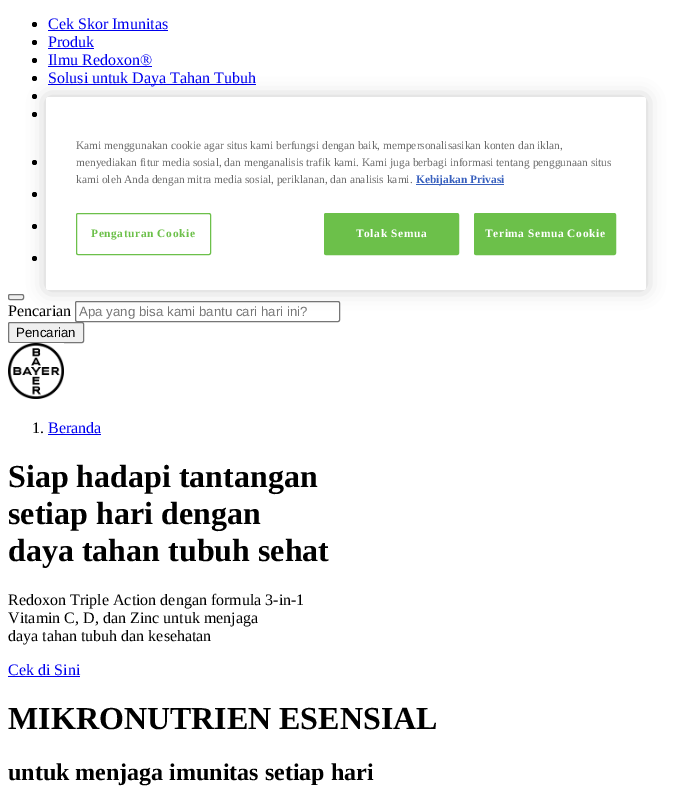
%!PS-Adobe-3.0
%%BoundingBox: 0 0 691 811
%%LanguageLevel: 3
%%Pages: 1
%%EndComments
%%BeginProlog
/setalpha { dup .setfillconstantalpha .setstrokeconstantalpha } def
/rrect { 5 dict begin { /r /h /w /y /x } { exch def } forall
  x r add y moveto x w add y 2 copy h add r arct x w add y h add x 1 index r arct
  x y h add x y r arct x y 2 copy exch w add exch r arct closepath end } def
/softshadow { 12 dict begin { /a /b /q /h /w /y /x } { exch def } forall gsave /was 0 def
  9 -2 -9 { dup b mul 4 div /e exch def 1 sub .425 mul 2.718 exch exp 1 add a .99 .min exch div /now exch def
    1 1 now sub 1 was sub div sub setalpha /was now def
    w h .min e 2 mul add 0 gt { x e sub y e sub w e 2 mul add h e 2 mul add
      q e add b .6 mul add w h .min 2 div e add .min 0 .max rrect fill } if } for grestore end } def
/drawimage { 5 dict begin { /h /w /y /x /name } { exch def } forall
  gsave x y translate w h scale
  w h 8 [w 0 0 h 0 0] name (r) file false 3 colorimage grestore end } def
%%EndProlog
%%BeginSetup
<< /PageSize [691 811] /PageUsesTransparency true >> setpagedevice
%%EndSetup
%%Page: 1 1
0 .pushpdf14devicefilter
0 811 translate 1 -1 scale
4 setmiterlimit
1 setgray
0 0 691 811 rectfill
0 setgray
newpath 34.5 24.5 2.5 0 360 arc closepath fill
0 0 0.933 setrgbcolor
48 30 120 1 rectfill
0 setgray
newpath 34.5 42.5 2.5 0 360 arc closepath fill
0 0 0.933 setrgbcolor
48 48 46 1 rectfill
0 setgray
newpath 34.5 60.5 2.5 0 360 arc closepath fill
0 0 0.933 setrgbcolor
48 66 104 1 rectfill
0 setgray
newpath 34.5 78.5 2.5 0 360 arc closepath fill
0 0 0.933 setrgbcolor
48 84 208 1 rectfill
0 setgray
newpath 34.5 96.5 2.5 0 360 arc closepath fill
newpath 34.5 114.5 2.5 0 360 arc closepath fill
newpath 34.5 162.5 2.5 0 360 arc closepath fill
newpath 34.5 194.5 2.5 0 360 arc closepath fill
newpath 34.5 226.5 2.5 0 360 arc closepath fill
newpath 34.5 258.5 2.5 0 360 arc closepath fill
0.937 setgray
8.5 294.5 15 5 1.5 rrect gsave fill grestore
0.463 setgray
stroke
75.5 301.5 264 20 1.5 rrect stroke
0.937 setgray
8.5 322.5 75 20 1.5 rrect gsave fill grestore
0.463 setgray
stroke
(images/1.raw) 8 343 56 56 drawimage
0 0 0.933 setrgbcolor
48 434 53 1 rectfill
8 676 72 1 rectfill
0 setgray
46 97 600 193 2.5 9 0.2 softshadow
1 setgray
46 97 600 193 2.5 rrect fill
0.22 0.376 0.745 setrgbcolor
416 184 88 1 rectfill
0.424 0.753 0.29 setrgbcolor
76.5 213.5 134 41 1.5 rrect stroke
324.5 213.5 134 41 1.5 rrect gsave fill grestore
stroke
474.5 213.5 141 41 1.5 rrect gsave fill grestore
stroke
/LiberationSerif-Regular [16 0 0 -16 0 0] selectfont
0 0 0.933 setrgbcolor
48 29 moveto (Cek Skor Imunitas) show
48 47 moveto (Produk) show
48 65 moveto (Ilmu Redoxon®) show
48 83 moveto (Solusi untuk Daya Tahan Tubuh) show
0 setgray
8 316 moveto (Pencarian) show
/LiberationSans-Regular [13.3 0 0 -13.3 0 0] selectfont
0.459 setgray
79 316 moveto (Apa yang bisa kami bantu cari hari ini?) show
0 setgray
16 337 moveto (Pencarian) show
/LiberationSerif-Regular [16 0 0 -16 0 0] selectfont
32 433 moveto (1.) show
0 0 0.933 setrgbcolor
48 433 moveto (Beranda) show
/LiberationSerif-Bold [32 0 0 -32 0 0] selectfont
0 setgray
8 487 moveto (Siap hadapi tantangan) show
8 524 moveto (setiap hari dengan) show
8 561 moveto (daya tahan tubuh sehat) show
/LiberationSerif-Regular [16 0 0 -16 0 0] selectfont
8 605 moveto (Redoxon Triple Action dengan formula 3-in-1) show
8 623 moveto (Vitamin C, D, dan Zinc untuk menjaga) show
8 641 moveto (daya tahan tubuh dan kesehatan) show
0 0 0.933 setrgbcolor
8 675 moveto (Cek di Sini) show
/LiberationSerif-Bold [32 0 0 -32 0 0] selectfont
0 setgray
8 729 moveto (MIKRONUTRIEN ESENSIAL) show
/LiberationSerif-Bold [24 0 0 -24 0 0] selectfont
8 780 moveto (untuk menjaga imunitas setiap hari) show
/LiberationSerif-Regular [11.4 0 0 -11.4 0 0] selectfont
0.412 setgray
76 149 moveto (Kami menggunakan cookie agar situs kami berfungsi dengan baik, mempersonalisasikan konten dan iklan,) show
76 166 moveto (menyediakan fitur media sosial, dan menganalisis trafik kami. Kami juga berbagi informasi tentang penggunaan situs) show
76 183 moveto (kami oleh Anda dengan mitra media sosial, periklanan, dan analisis kami.) show
/LiberationSerif-Bold [11.4 0 0 -11.4 0 0] selectfont
0.22 0.376 0.745 setrgbcolor
416 183 moveto (Kebijakan Privasi) show
0.424 0.753 0.29 setrgbcolor
91 237 moveto 0.6 0 (Pengaturan Cookie) ashow
1 setgray
356 237 moveto 0.6 0 (Tolak Semua) ashow
485 237 moveto 0.6 0 (Terima Semua Cookie) ashow
.poppdf14devicefilter showpage
%%EOF
